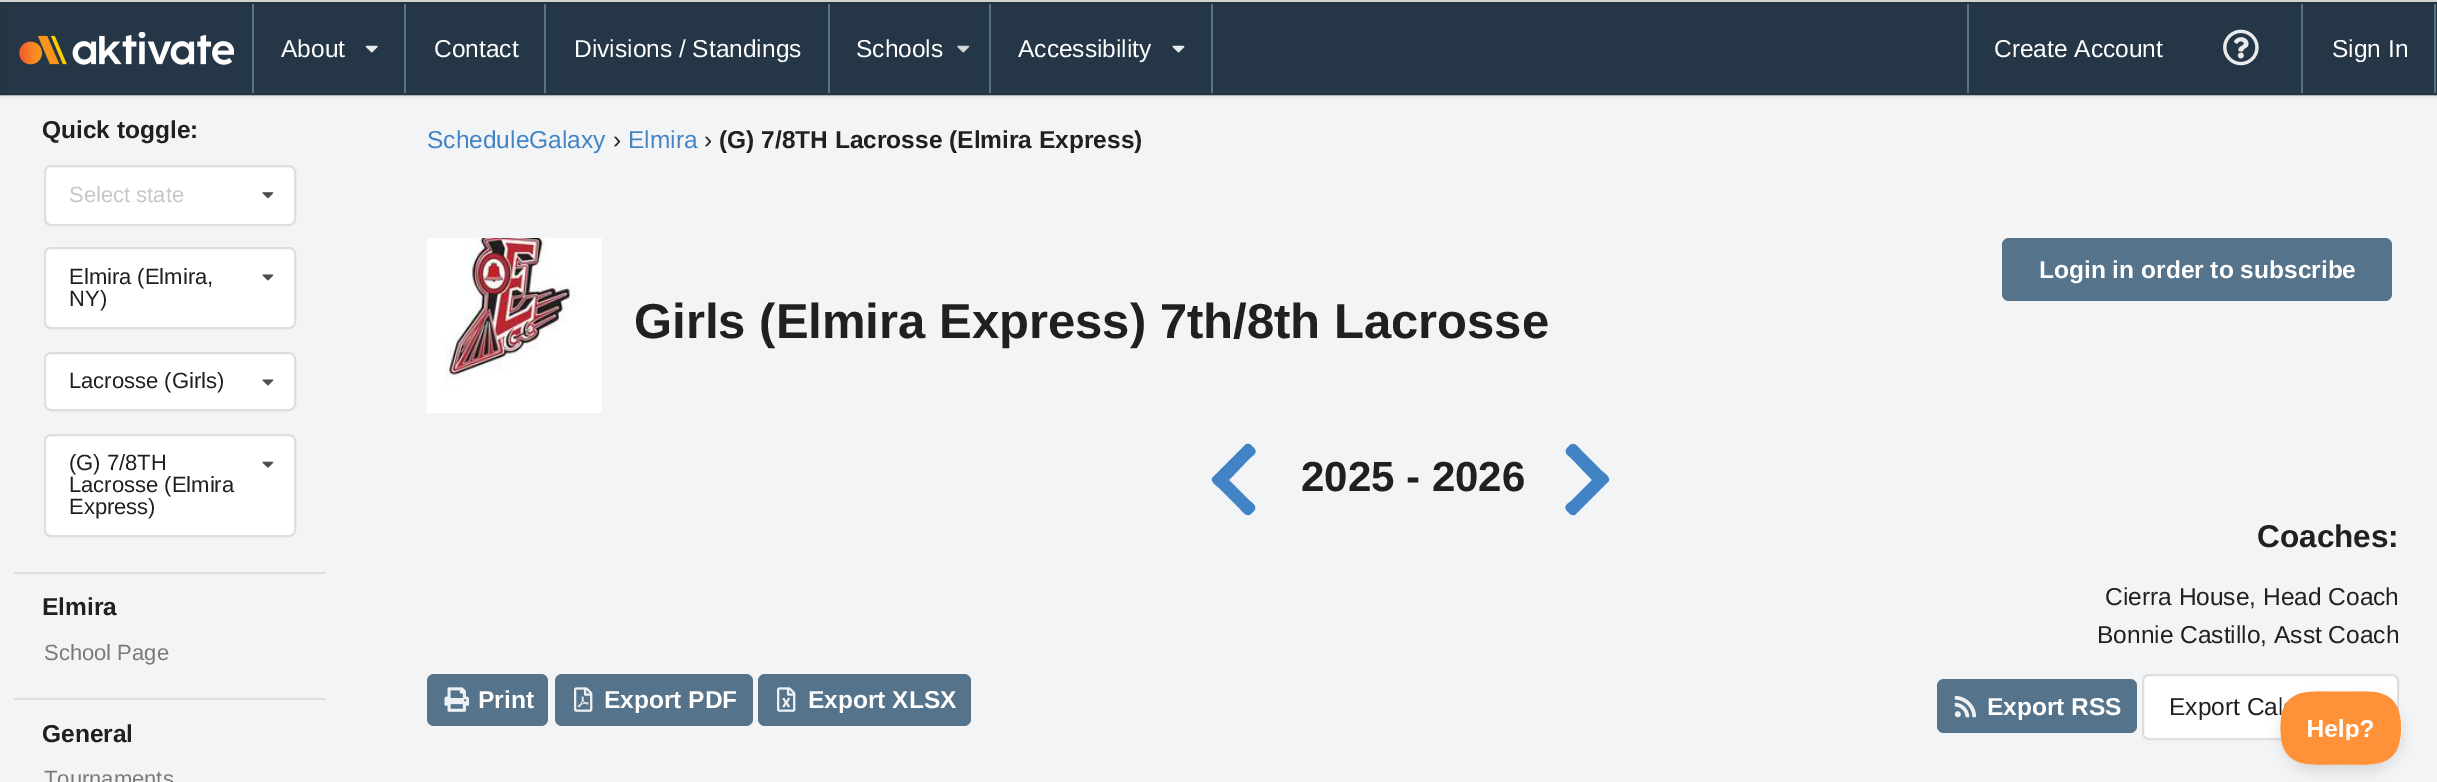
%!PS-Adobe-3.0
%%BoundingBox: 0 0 2437 782
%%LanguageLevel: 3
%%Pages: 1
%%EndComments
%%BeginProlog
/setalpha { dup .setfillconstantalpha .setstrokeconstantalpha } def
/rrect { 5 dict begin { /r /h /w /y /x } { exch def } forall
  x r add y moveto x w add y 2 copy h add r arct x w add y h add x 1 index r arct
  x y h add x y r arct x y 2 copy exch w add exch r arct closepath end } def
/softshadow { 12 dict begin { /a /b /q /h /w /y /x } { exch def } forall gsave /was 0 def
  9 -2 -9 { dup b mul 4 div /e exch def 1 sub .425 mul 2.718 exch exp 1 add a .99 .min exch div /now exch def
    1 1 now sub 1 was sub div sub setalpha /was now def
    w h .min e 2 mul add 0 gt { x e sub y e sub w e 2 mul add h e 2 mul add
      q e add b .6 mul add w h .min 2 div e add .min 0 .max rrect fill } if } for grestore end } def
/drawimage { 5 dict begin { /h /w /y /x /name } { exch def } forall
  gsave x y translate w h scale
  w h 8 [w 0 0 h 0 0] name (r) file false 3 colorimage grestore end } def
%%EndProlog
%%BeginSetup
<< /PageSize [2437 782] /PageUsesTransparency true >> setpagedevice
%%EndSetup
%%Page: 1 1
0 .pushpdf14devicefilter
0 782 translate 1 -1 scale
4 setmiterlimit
1 setgray
0 0 2437 782 rectfill
0.831 0.831 0.835 setrgbcolor
2 setlinewidth
-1 1 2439 780 rectstroke
0.953 0.957 0.961 setrgbcolor
0 95 2437 687 rectfill
0.133 0.141 0.149 setrgbcolor
0 4 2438 92 0 2 0.15 softshadow
0.145 0.216 0.275 setrgbcolor
2 4 2432 89 rectfill
0.145 0.204 0.255 setrgbcolor
1 3 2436 91 rectstroke
(images/1.raw) 19 32 215 33 drawimage
0.333 0.451 0.545 setrgbcolor
252 4 2 89 rectfill
(images/2.raw) 365 45 13 8 drawimage
404 4 2 89 rectfill
544 4 2 89 rectfill
828 4 2 89 rectfill
(images/3.raw) 957 45 13 8 drawimage
989 4 2 89 rectfill
(images/4.raw) 1172 45 13 8 drawimage
1211 4 2 89 rectfill
1967 4 2 89 rectfill
(images/5.raw) 2223 29 36 37 drawimage
2301 4 2 89 rectfill
2434 4 2 89 rectfill
1 setgray
44 165 252 61 7 rrect fill
0.15 setalpha
0.133 0.141 0.149 setrgbcolor
45 166 250 59 6 rrect stroke
1 setalpha
(images/6.raw) 262 192 12 7 drawimage
1 setgray
44 247 252 82 7 rrect fill
0.15 setalpha
0.133 0.141 0.149 setrgbcolor
45 248 250 80 6 rrect stroke
1 setalpha
(images/7.raw) 262 274 12 7 drawimage
1 setgray
44 352 252 59 7 rrect fill
0.15 setalpha
0.133 0.141 0.149 setrgbcolor
45 353 250 57 6 rrect stroke
1 setalpha
(images/7.raw) 262 379 12 7 drawimage
1 setgray
44 434 252 103 7 rrect fill
0.15 setalpha
0.133 0.141 0.149 setrgbcolor
45 435 250 101 6 rrect stroke
1 setalpha
(images/8.raw) 262 461 12 7 drawimage
0.871 0.875 0.878 setrgbcolor
14 572 312 2 rectfill
14 698 312 2 rectfill
(images/9.raw) 427 238 175 175 drawimage
0.333 0.451 0.545 setrgbcolor
2002 238 390 63 7 rrect fill
0.255 0.514 0.769 setrgbcolor
newpath 1213 477 moveto 1245 445 lineto 1248 442 1251 445 1253 447 curveto 1258 452 1255 454 1250 458 curveto 1229 480 lineto 1250 501 lineto 1252 503 1256 505 1255 509 curveto 1255 510 1253 512 1252 513 curveto 1247 518 1244 513 1240 509 curveto 1219 488 lineto 1217 486 1209 481 1213 477 curveto closepath fill
newpath 1608 482 moveto 1576 514 lineto 1573 517 1570 514 1568 512 curveto 1563 507 1566 505 1571 501 curveto 1592 480 lineto 1571 458 lineto 1569 456 1565 454 1566 450 curveto 1566 449 1568 447 1569 446 curveto 1574 441 1577 446 1581 450 curveto 1602 471 lineto 1604 473 1612 478 1608 482 curveto closepath fill
0.333 0.451 0.545 setrgbcolor
427 674 121 52 7 rrect fill
(images/10.raw) 444 687 25 25 drawimage
555 674 198 52 7 rrect fill
(images/11.raw) 574 687 19 25 drawimage
758 674 213 52 7 rrect fill
(images/12.raw) 777 687 19 25 drawimage
1937 679 200 54 7 rrect fill
(images/13.raw) 1954 695 23 23 drawimage
1 setgray
2142 674 257 66 7 rrect fill
0.15 setalpha
0.133 0.141 0.149 setrgbcolor
2143 675 255 64 6 rrect stroke
gsave
newpath 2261 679 moveto 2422 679 lineto 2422 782 lineto 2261 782 lineto closepath 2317 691 moveto 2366 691 lineto 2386.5 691 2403 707.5 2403 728 curveto 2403 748.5 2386.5 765 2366 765 curveto 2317 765 lineto 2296.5 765 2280 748.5 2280 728 curveto 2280 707.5 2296.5 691 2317 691 curveto closepath eoclip newpath
1 setalpha
0 setgray
2280 698 123 74 37 6 0.1 softshadow
grestore
/LiberationSans-Regular [24.5 0 0 -24.5 0 0] selectfont
1 setalpha
1 setgray
281 57 moveto (About) show
434 57 moveto (Contact) show
574 57 moveto (Divisions / Standings) show
856 57 moveto (Schools) show
1018 57 moveto (Accessibility) show
1994 57 moveto (Create Account) show
2332 57 moveto (Sign In) show
/LiberationSans-Bold [24.5 0 0 -24.5 0 0] selectfont
0.125 setgray
42 138 moveto (Quick toggle:) show
/LiberationSans-Regular [22 0 0 -22 0 0] selectfont
0.78 setgray
69 202 moveto (Select state) show
0.125 setgray
69 284 moveto (Elmira \(Elmira,) show
69 306 moveto (NY\)) show
69 388 moveto (Lacrosse \(Girls\)) show
69 470 moveto (\(G\) 7/8TH) show
69 492 moveto (Lacrosse \(Elmira) show
69 514 moveto (Express\)) show
/LiberationSans-Bold [24.5 0 0 -24.5 0 0] selectfont
42 615 moveto (Elmira) show
/LiberationSans-Regular [22 0 0 -22 0 0] selectfont
0.478 0.478 0.482 setrgbcolor
44 660 moveto (School Page) show
/LiberationSans-Bold [24.5 0 0 -24.5 0 0] selectfont
0.125 setgray
42 742 moveto (General) show
/LiberationSans-Regular [22 0 0 -22 0 0] selectfont
0.478 0.478 0.482 setrgbcolor
44 786 moveto (Tournaments) show
/LiberationSans-Regular [24.5 0 0 -24.5 0 0] selectfont
0.255 0.514 0.769 setrgbcolor
427 148 moveto (ScheduleGalaxy) show
0.125 setgray
613 148 moveto (›) show
0.255 0.514 0.769 setrgbcolor
628 148 moveto (Elmira) show
0.125 setgray
704 148 moveto (›) show
/LiberationSans-Bold [24.5 0 0 -24.5 0 0] selectfont
719 148 moveto (\(G\) 7/8TH Lacrosse \(Elmira Express\)) show
1 setgray
2039 278 moveto (Login in order to subscribe) show
/LiberationSans-Bold [49 0 0 -49 0 0] selectfont
0.125 setgray
634 338 moveto (Girls \(Elmira Express\) 7th/8th Lacrosse) show
/LiberationSans-Bold [42 0 0 -42 0 0] selectfont
1301 491 moveto (2025 - 2026) show
/LiberationSans-Bold [31.5 0 0 -31.5 0 0] selectfont
2257 547 moveto (Coaches:) show
/LiberationSans-Regular [24.5 0 0 -24.5 0 0] selectfont
2105 605 moveto (Cierra House, Head Coach) show
2097 643 moveto (Bonnie Castillo, Asst Coach) show
/LiberationSans-Bold [24.5 0 0 -24.5 0 0] selectfont
1 setgray
478 708 moveto (Print) show
604 708 moveto (Export PDF) show
808 708 moveto (Export XLSX) show
1987 715 moveto (Export RSS) show
/LiberationSans-Regular [24.5 0 0 -24.5 0 0] selectfont
0.125 setgray
2169 715 moveto (Export Cal) show
(images/14.raw) 2280 691 121 74 drawimage
.poppdf14devicefilter showpage
%%EOF
